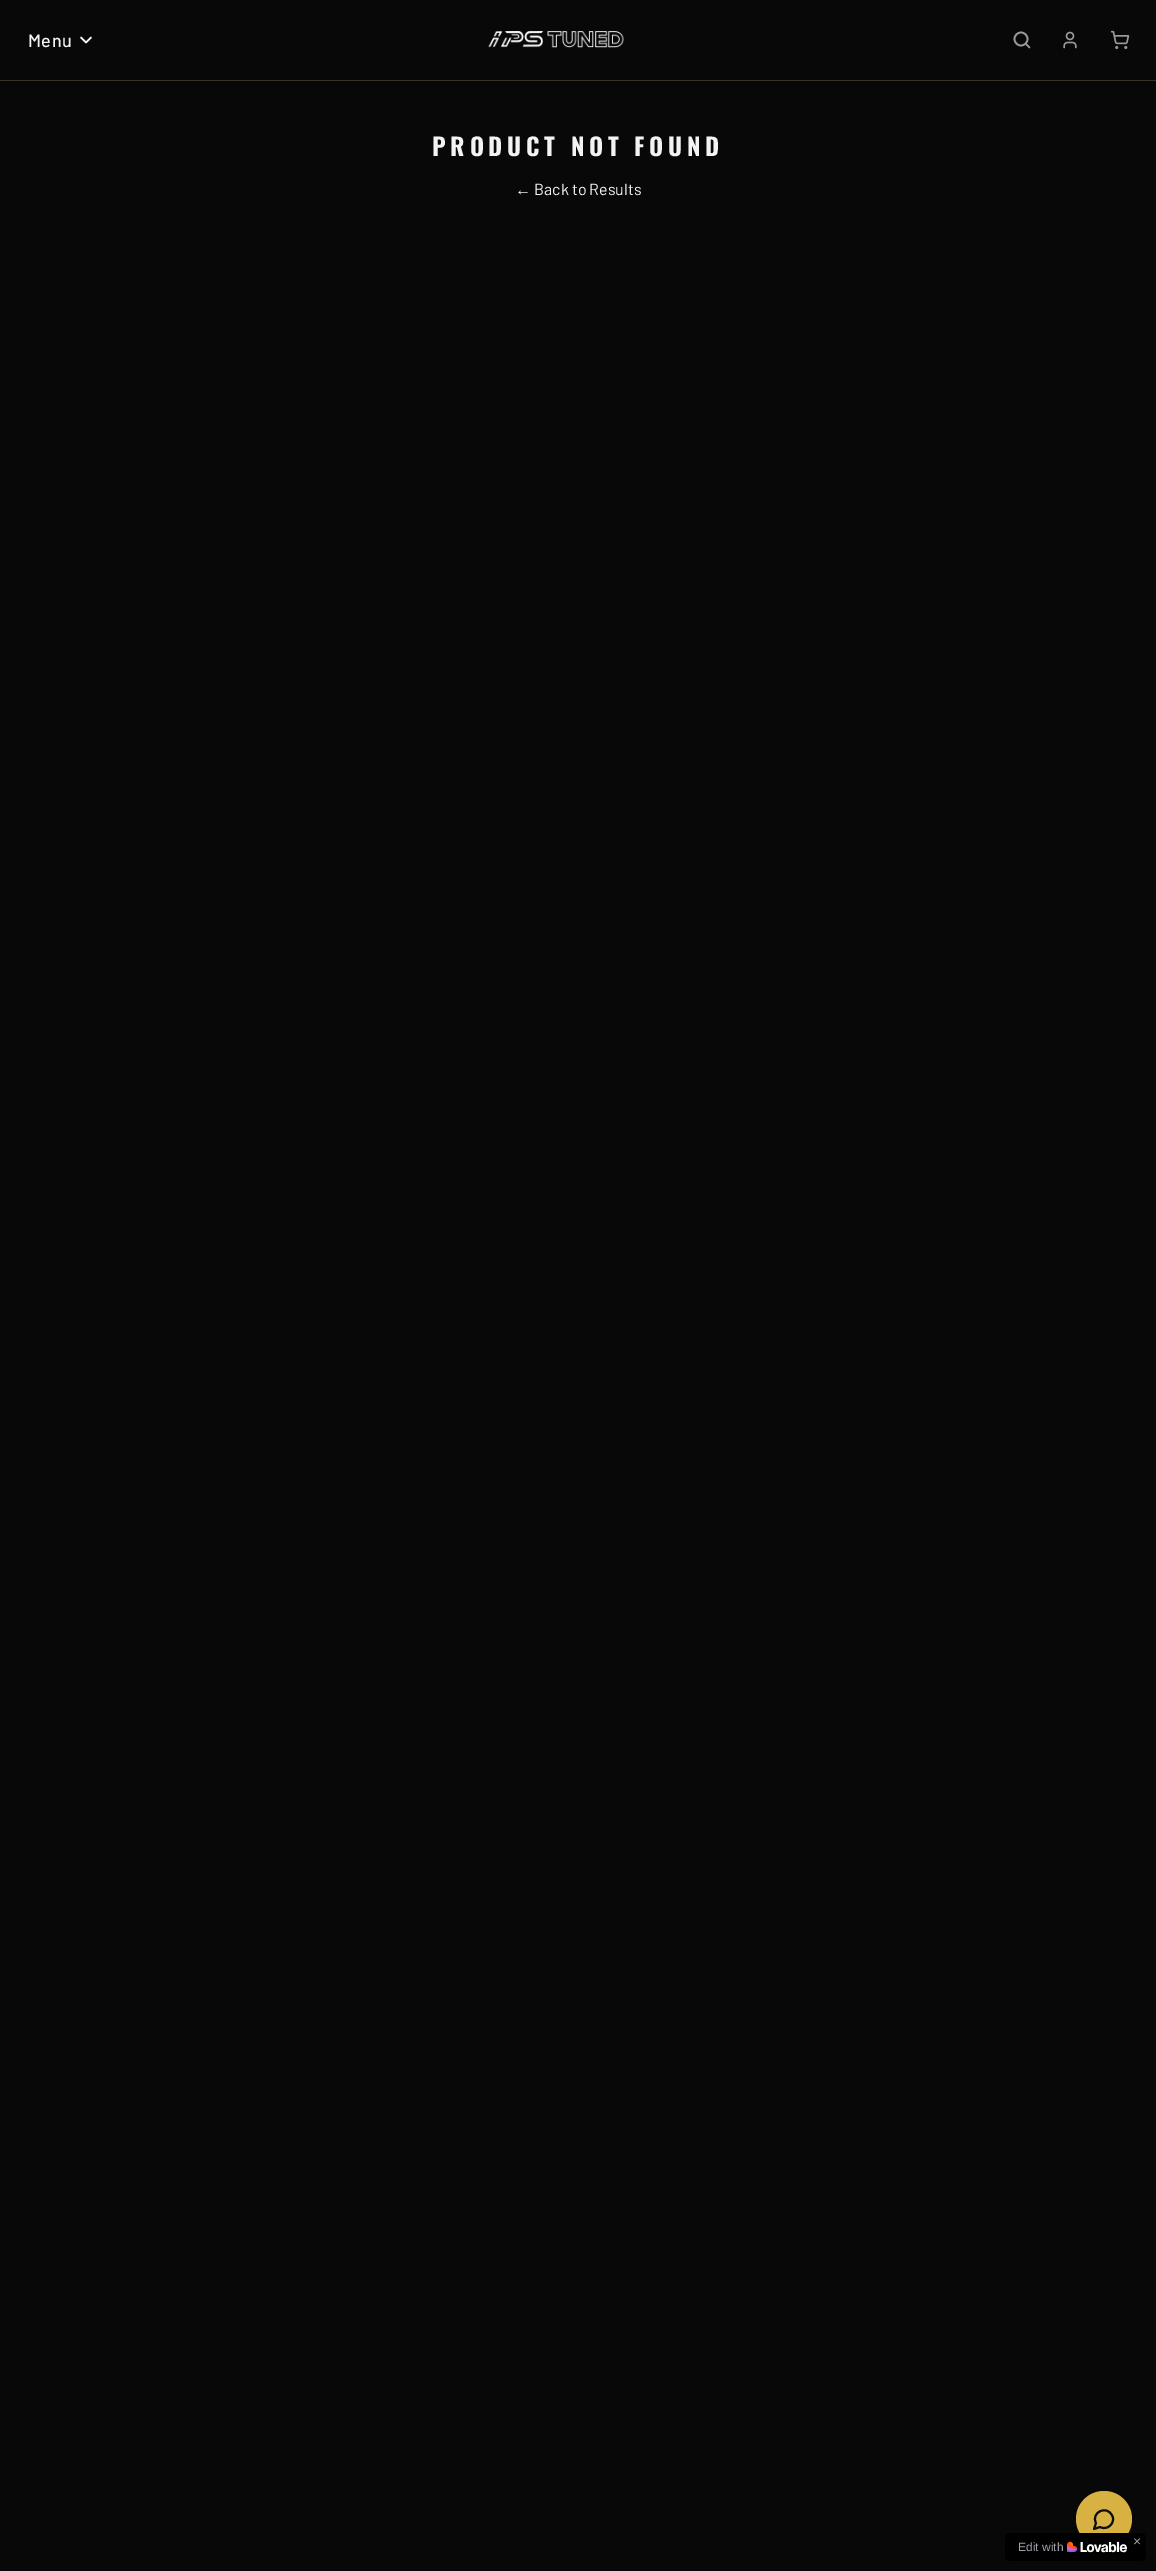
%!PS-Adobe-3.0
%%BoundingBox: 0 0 1156 2571
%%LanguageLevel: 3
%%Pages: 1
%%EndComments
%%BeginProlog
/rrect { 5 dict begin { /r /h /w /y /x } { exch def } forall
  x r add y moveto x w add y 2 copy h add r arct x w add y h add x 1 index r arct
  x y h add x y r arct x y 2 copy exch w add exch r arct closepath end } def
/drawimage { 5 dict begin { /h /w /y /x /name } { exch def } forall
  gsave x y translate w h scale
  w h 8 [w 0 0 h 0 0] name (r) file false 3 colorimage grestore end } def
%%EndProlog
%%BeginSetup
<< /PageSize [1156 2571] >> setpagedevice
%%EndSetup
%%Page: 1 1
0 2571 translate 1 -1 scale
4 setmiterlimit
0.031 setgray
0 0 1156 2571 rectfill
0.216 0.196 0.145 setrgbcolor
0 80 1156 1 rectfill
0.957 0.953 0.945 setrgbcolor
1.7 setlinewidth
1 setlinecap
1 setlinejoin
newpath 81 37.5 moveto 86 42.5 lineto 91 37.5 lineto stroke
(images/1.raw) 488 31 136 17 drawimage
0.6 setgray
0 setlinecap
0 setlinejoin
newpath 1021 39 6.5 0 360 arc closepath stroke
1 setlinecap
1 setlinejoin
newpath 1029.5 47.5 moveto 1026 44 lineto stroke
(images/2.raw) 1063 31 14 18 drawimage
(images/3.raw) 1110 30 20 20 drawimage
0.843 0.698 0.259 setrgbcolor
newpath 1104 2519 28 0 360 arc closepath fill
0.051 setgray
2 setlinewidth
newpath 1100 2527 moveto 1104.5 2529.5 1110 2527.5 1112 2523 curveto 1113.5 2520.5 1113.5 2517.5 1112 2515.5 curveto 1107 2504.5 1090.5 2512.5 1096 2523 curveto 1094 2529 lineto closepath stroke
0 setgray
1005 2533 141 28 5 rrect fill
(images/4.raw) 1067 2541 60 12 drawimage
/Barlow-Medium [18 0 0 -18 0 0] selectfont
0.957 0.953 0.945 setrgbcolor
28 47 moveto 0.5 0 (Menu) ashow
/Oswald-Bold [24 0 0 -24 0 0] selectfont
432 156 moveto 4.75 0 (PRODUCT NOT FOUND) ashow
/LiberationSans-Regular [16 0 0 -16 0 0] selectfont
515 195 moveto (←) show
/Barlow-Regular [16 0 0 -16 0 0] selectfont
534 195 moveto (Back to Results) show
/LiberationSans-Regular [12 0 0 -12 0 0] selectfont
0.631 0.631 0.667 setrgbcolor
1018 2551 moveto (Edit with) show
/LiberationSans-Regular [14 0 0 -14 0 0] selectfont
1133 2546 moveto (×) show
showpage
%%EOF
